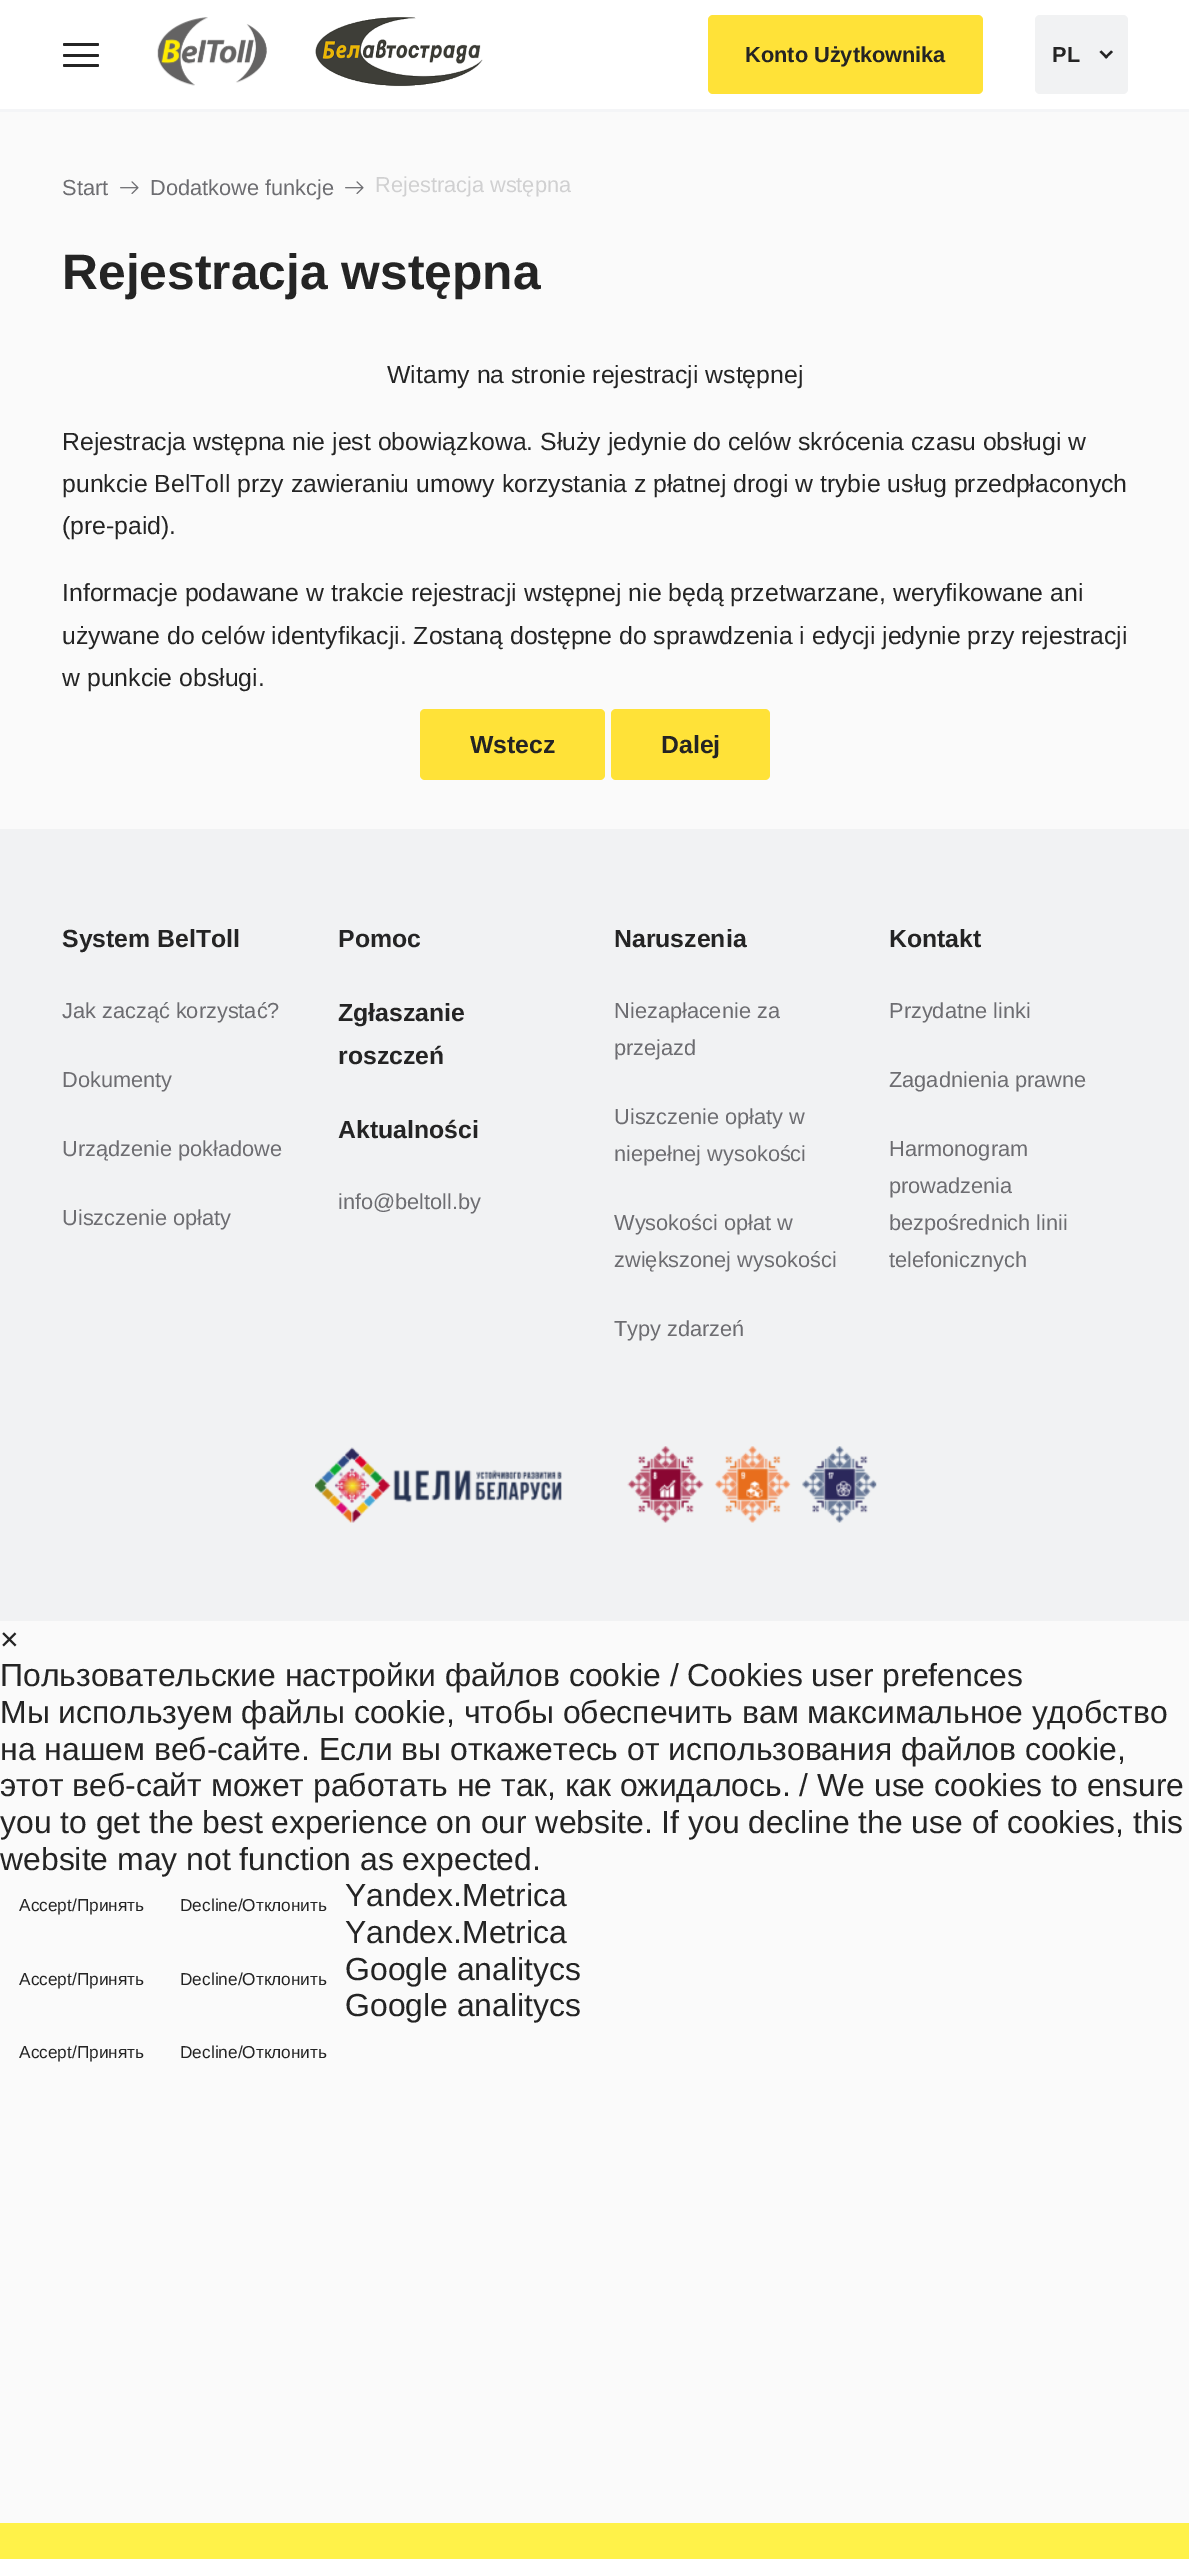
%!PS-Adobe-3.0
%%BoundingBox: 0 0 1189 2559
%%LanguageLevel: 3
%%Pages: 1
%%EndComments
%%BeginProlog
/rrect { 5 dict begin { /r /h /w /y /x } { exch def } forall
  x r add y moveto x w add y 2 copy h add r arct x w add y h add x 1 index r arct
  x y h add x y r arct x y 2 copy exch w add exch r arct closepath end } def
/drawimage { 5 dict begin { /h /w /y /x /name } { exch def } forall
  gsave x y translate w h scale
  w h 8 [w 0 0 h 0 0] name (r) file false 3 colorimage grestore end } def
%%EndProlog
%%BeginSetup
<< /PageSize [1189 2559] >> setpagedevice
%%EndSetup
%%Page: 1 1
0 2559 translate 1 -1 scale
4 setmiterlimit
0.98 setgray
0 0 1189 2559 rectfill
1 setgray
0 0 1189 109 rectfill
0.957 0.961 0.969 setrgbcolor
0 109 1189 3 rectfill
0.141 setgray
63 54 36 3 1.5 rrect fill
63 43 36 3 1.5 rrect fill
63 64 36 3 1.5 rrect fill
(images/1.raw) 157 17 110 69 drawimage
(images/2.raw) 315 17 168 70 drawimage
1 0.886 0.22 setrgbcolor
708 15 275 79 5 rrect fill
0.945 0.949 0.953 setrgbcolor
1035 15 93 79 5 rrect fill
0.141 setgray
newpath 1104.5 57 moveto 1111 50.5 lineto 1113 52 lineto 1106 58.5 lineto closepath fill
newpath 1099.5 52 moveto 1101.5 50.5 lineto 1108 57 lineto 1106 58.5 lineto closepath fill
(images/3.raw) 120 181 19 13 drawimage
(images/3.raw) 345 181 19 13 drawimage
1 0.886 0.22 setrgbcolor
420 709 185 71 5 rrect fill
611 709 159 71 5 rrect fill
0.945 0.949 0.953 setrgbcolor
0 829 1189 792 rectfill
(images/4.raw) 315 1446 562 77 drawimage
1 0.949 0.286 setrgbcolor
0 2523 1189 36 rectfill
/LiberationSans-Bold [21.75 0 0 -21.75 0 0] selectfont
0.141 setgray
745 62 moveto (Konto Użytkownika) show
1052 62 moveto (PL) show
/LiberationSans-Regular [21.75 0 0 -21.75 0 0] selectfont
0.427 0.427 0.443 setrgbcolor
62 195 moveto (Start) show
150 195 moveto (Dodatkowe funkcje) show
0.816 0.816 0.82 setrgbcolor
375 192 moveto (Rejestracja wstępna) show
/LiberationSans-Bold [49.75 0 0 -49.75 0 0] selectfont
0.141 setgray
62 289 moveto (Rejestracja wstępna) show
/LiberationSans-Regular [24.8 0 0 -24.8 0 0] selectfont
387 383 moveto (Witamy na stronie rejestracji wstępnej) show
62 450 moveto (Rejestracja wstępna nie jest obowiązkowa. Służy jedynie do celów skrócenia czasu obsługi w) show
62 492 moveto (punkcie BelToll przy zawieraniu umowy korzystania z płatnej drogi w trybie usług przedpłaconych) show
62 534 moveto (\(pre-paid\).) show
62 601 moveto (Informacje podawane w trakcie rejestracji wstępnej nie będą przetwarzane, weryfikowane ani) show
62 644 moveto (używane do celów identyfikacji. Zostaną dostępne do sprawdzenia i edycji jedynie przy rejestracji) show
62 686 moveto (w punkcie obsługi.) show
/LiberationSans-Bold [24.8 0 0 -24.8 0 0] selectfont
470 753 moveto (Wstecz) show
661 753 moveto (Dalej) show
62 947 moveto (System BelToll) show
/LiberationSans-Regular [21.75 0 0 -21.75 0 0] selectfont
0.427 0.427 0.443 setrgbcolor
62 1018 moveto (Jak zacząć korzystać?) show
62 1087 moveto (Dokumenty) show
62 1156 moveto (Urządzenie pokładowe) show
62 1225 moveto (Uiszczenie opłaty) show
/LiberationSans-Bold [24.8 0 0 -24.8 0 0] selectfont
0.141 setgray
338 947 moveto (Pomoc) show
338 1021 moveto (Zgłaszanie) show
338 1064 moveto (roszczeń) show
338 1138 moveto (Aktualności) show
/LiberationSans-Regular [21.75 0 0 -21.75 0 0] selectfont
0.427 0.427 0.443 setrgbcolor
338 1209 moveto (info@beltoll.by) show
/LiberationSans-Bold [24.8 0 0 -24.8 0 0] selectfont
0.141 setgray
614 947 moveto (Naruszenia) show
/LiberationSans-Regular [21.75 0 0 -21.75 0 0] selectfont
0.427 0.427 0.443 setrgbcolor
614 1018 moveto (Niezapłacenie za) show
614 1055 moveto (przejazd) show
614 1124 moveto (Uiszczenie opłaty w) show
614 1161 moveto (niepełnej wysokości) show
614 1230 moveto (Wysokości opłat w) show
614 1267 moveto (zwiększonej wysokości) show
614 1336 moveto (Typy zdarzeń) show
/LiberationSans-Bold [24.8 0 0 -24.8 0 0] selectfont
0.141 setgray
889 947 moveto (Kontakt) show
/LiberationSans-Regular [21.75 0 0 -21.75 0 0] selectfont
0.427 0.427 0.443 setrgbcolor
889 1018 moveto (Przydatne linki) show
889 1087 moveto (Zagadnienia prawne) show
889 1156 moveto (Harmonogram) show
889 1193 moveto (prowadzenia) show
889 1230 moveto (bezpośrednich linii) show
889 1267 moveto (telefonicznych) show
/LiberationSans-Regular [31.9 0 0 -31.9 0 0] selectfont
0.141 setgray
0 1650 moveto (×) show
0 1686 moveto (Пользовательские настройки файлов cookie / Cookies user prefences) show
0 1723 moveto (Мы используем файлы cookie, чтобы обеспечить вам максимальное удобство) show
0 1760 moveto (на нашем веб-сайте. Если вы откажетесь от использования файлов cookie,) show
0 1796 moveto (этот веб-сайт может работать не так, как ожидалось. / We use cookies to ensure) show
0 1833 moveto (you to get the best experience on our website. If you decline the use of cookies, this) show
0 1870 moveto (website may not function as expected.) show
345 1906 moveto (Yandex.Metrica) show
345 1943 moveto (Yandex.Metrica) show
/LiberationSans-Regular [17.25 0 0 -17.25 0 0] selectfont
19 1985 moveto (Accept/Принять) show
180 1985 moveto (Decline/Отклонить) show
19 1911 moveto (Accept/Принять) show
180 1911 moveto (Decline/Отклонить) show
/LiberationSans-Regular [31.9 0 0 -31.9 0 0] selectfont
345 1980 moveto (Google analitycs) show
345 2016 moveto (Google analitycs) show
/LiberationSans-Regular [17.25 0 0 -17.25 0 0] selectfont
19 2058 moveto (Accept/Принять) show
180 2058 moveto (Decline/Отклонить) show
showpage
%%EOF
